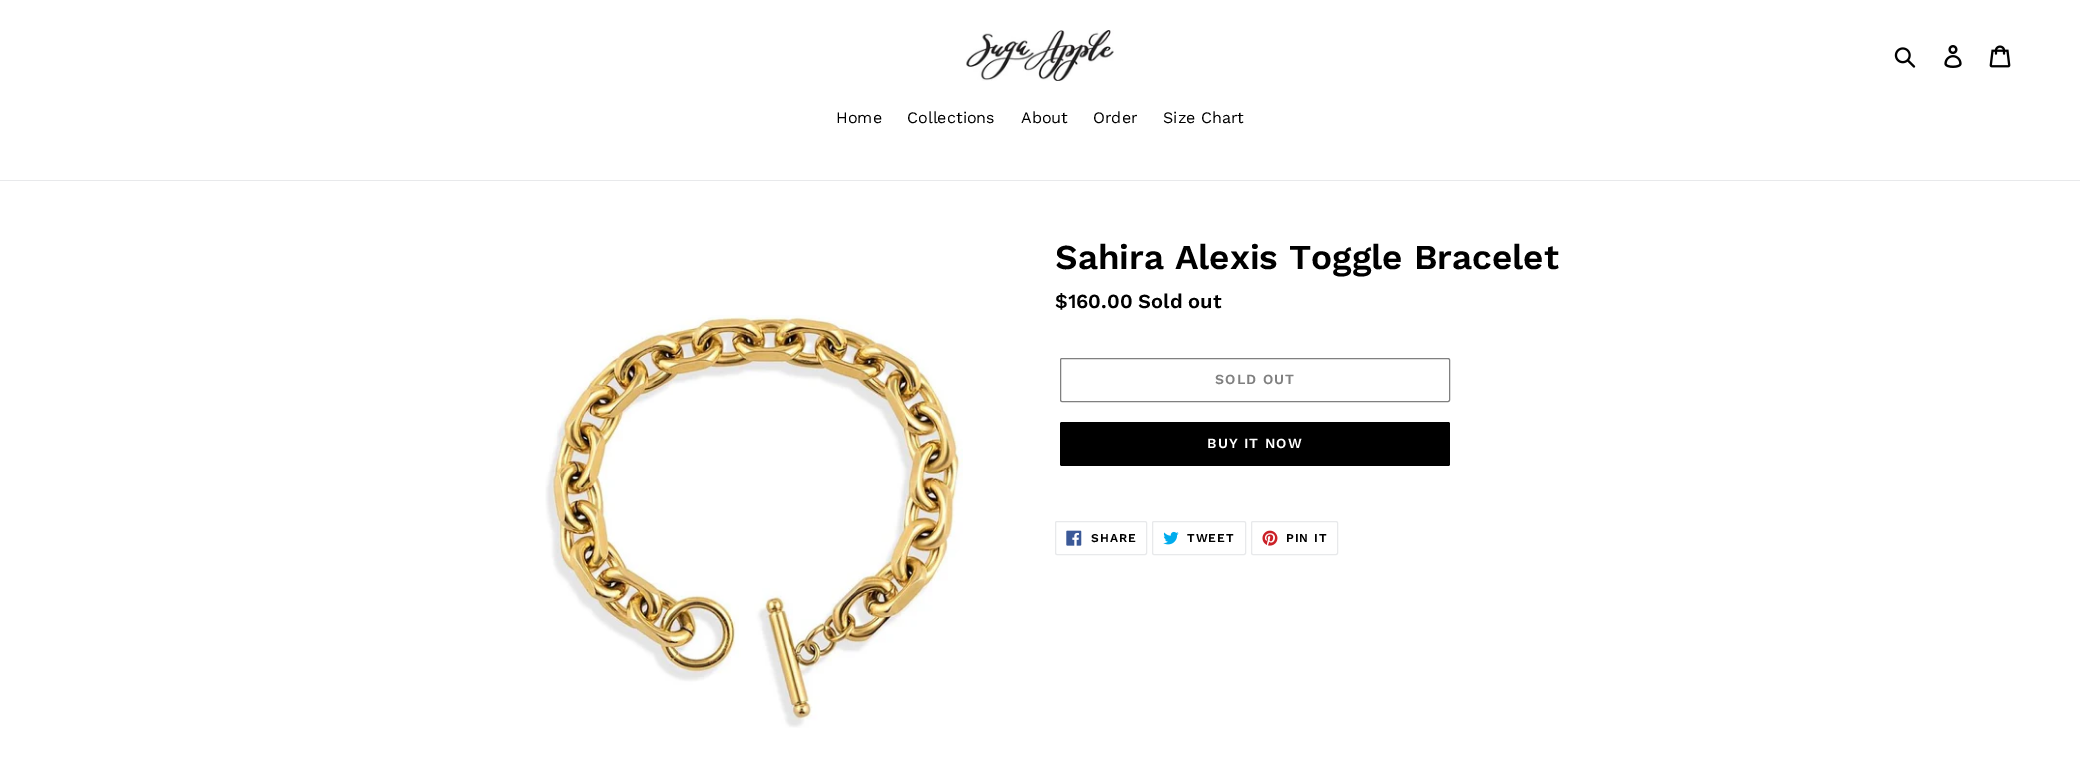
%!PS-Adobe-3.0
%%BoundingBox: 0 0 2080 777
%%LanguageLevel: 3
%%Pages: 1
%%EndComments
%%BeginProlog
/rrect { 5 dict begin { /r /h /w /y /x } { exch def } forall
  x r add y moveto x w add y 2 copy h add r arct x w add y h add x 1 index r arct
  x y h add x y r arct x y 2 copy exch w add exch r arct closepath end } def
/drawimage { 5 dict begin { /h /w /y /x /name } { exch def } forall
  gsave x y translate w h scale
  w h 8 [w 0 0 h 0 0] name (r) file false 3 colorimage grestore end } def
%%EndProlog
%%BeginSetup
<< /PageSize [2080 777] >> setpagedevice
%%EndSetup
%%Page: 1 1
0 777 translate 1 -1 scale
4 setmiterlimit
1 setgray
0 0 2080 777 rectfill
(images/1.raw) 966 30 148 51 drawimage
(images/2.raw) 1894 47 22 21 drawimage
(images/3.raw) 1944 45 18 23 drawimage
(images/4.raw) 1989 45 22 23 drawimage
0.91 0.914 0.922 setrgbcolor
0 180 2080 1 rectfill
(images/5.raw) 545 315 418 413 drawimage
0.502 setgray
1060.5 358.5 389 43 1.5 rrect stroke
0 setgray
1060 422 390 44 2 rrect fill
0.91 0.914 0.922 setrgbcolor
1055.5 521.5 91 33 1.5 rrect stroke
(images/6.raw) 1066 530 16 16 drawimage
1152.5 521.5 93 33 1.5 rrect stroke
(images/7.raw) 1163 531 16 14 drawimage
1251.5 521.5 86 33 1.5 rrect stroke
(images/8.raw) 1262 530 16 16 drawimage
/WorkSans-Regular [16 0 0 -16 0 0] selectfont
0 setgray
836 123 moveto (Home) show
907 123 moveto (Collections) show
1021 123 moveto (About) show
1093 123 moveto (Order) show
1163 123 moveto (Size Chart) show
/WorkSans-SemiBold [35 0 0 -35 0 0] selectfont
1055 269 moveto (Sahira Alexis Toggle Bracelet) show
/WorkSans-SemiBold [20 0 0 -20 0 0] selectfont
1055 308 moveto ($160.00 Sold out) show
/WorkSans-SemiBold [14 0 0 -14 0 0] selectfont
0.502 setgray
1215 384 moveto 1.1 0 (SOLD OUT) ashow
1 setgray
1207 448 moveto 1.1 0 (BUY IT NOW) ashow
/WorkSans-SemiBold [12 0 0 -12 0 0] selectfont
0 setgray
1091 542 moveto 1 0 (SHARE) ashow
1187 542 moveto 1 0 (TWEET) ashow
1286 542 moveto 1 0 (PIN IT) ashow
showpage
%%EOF
